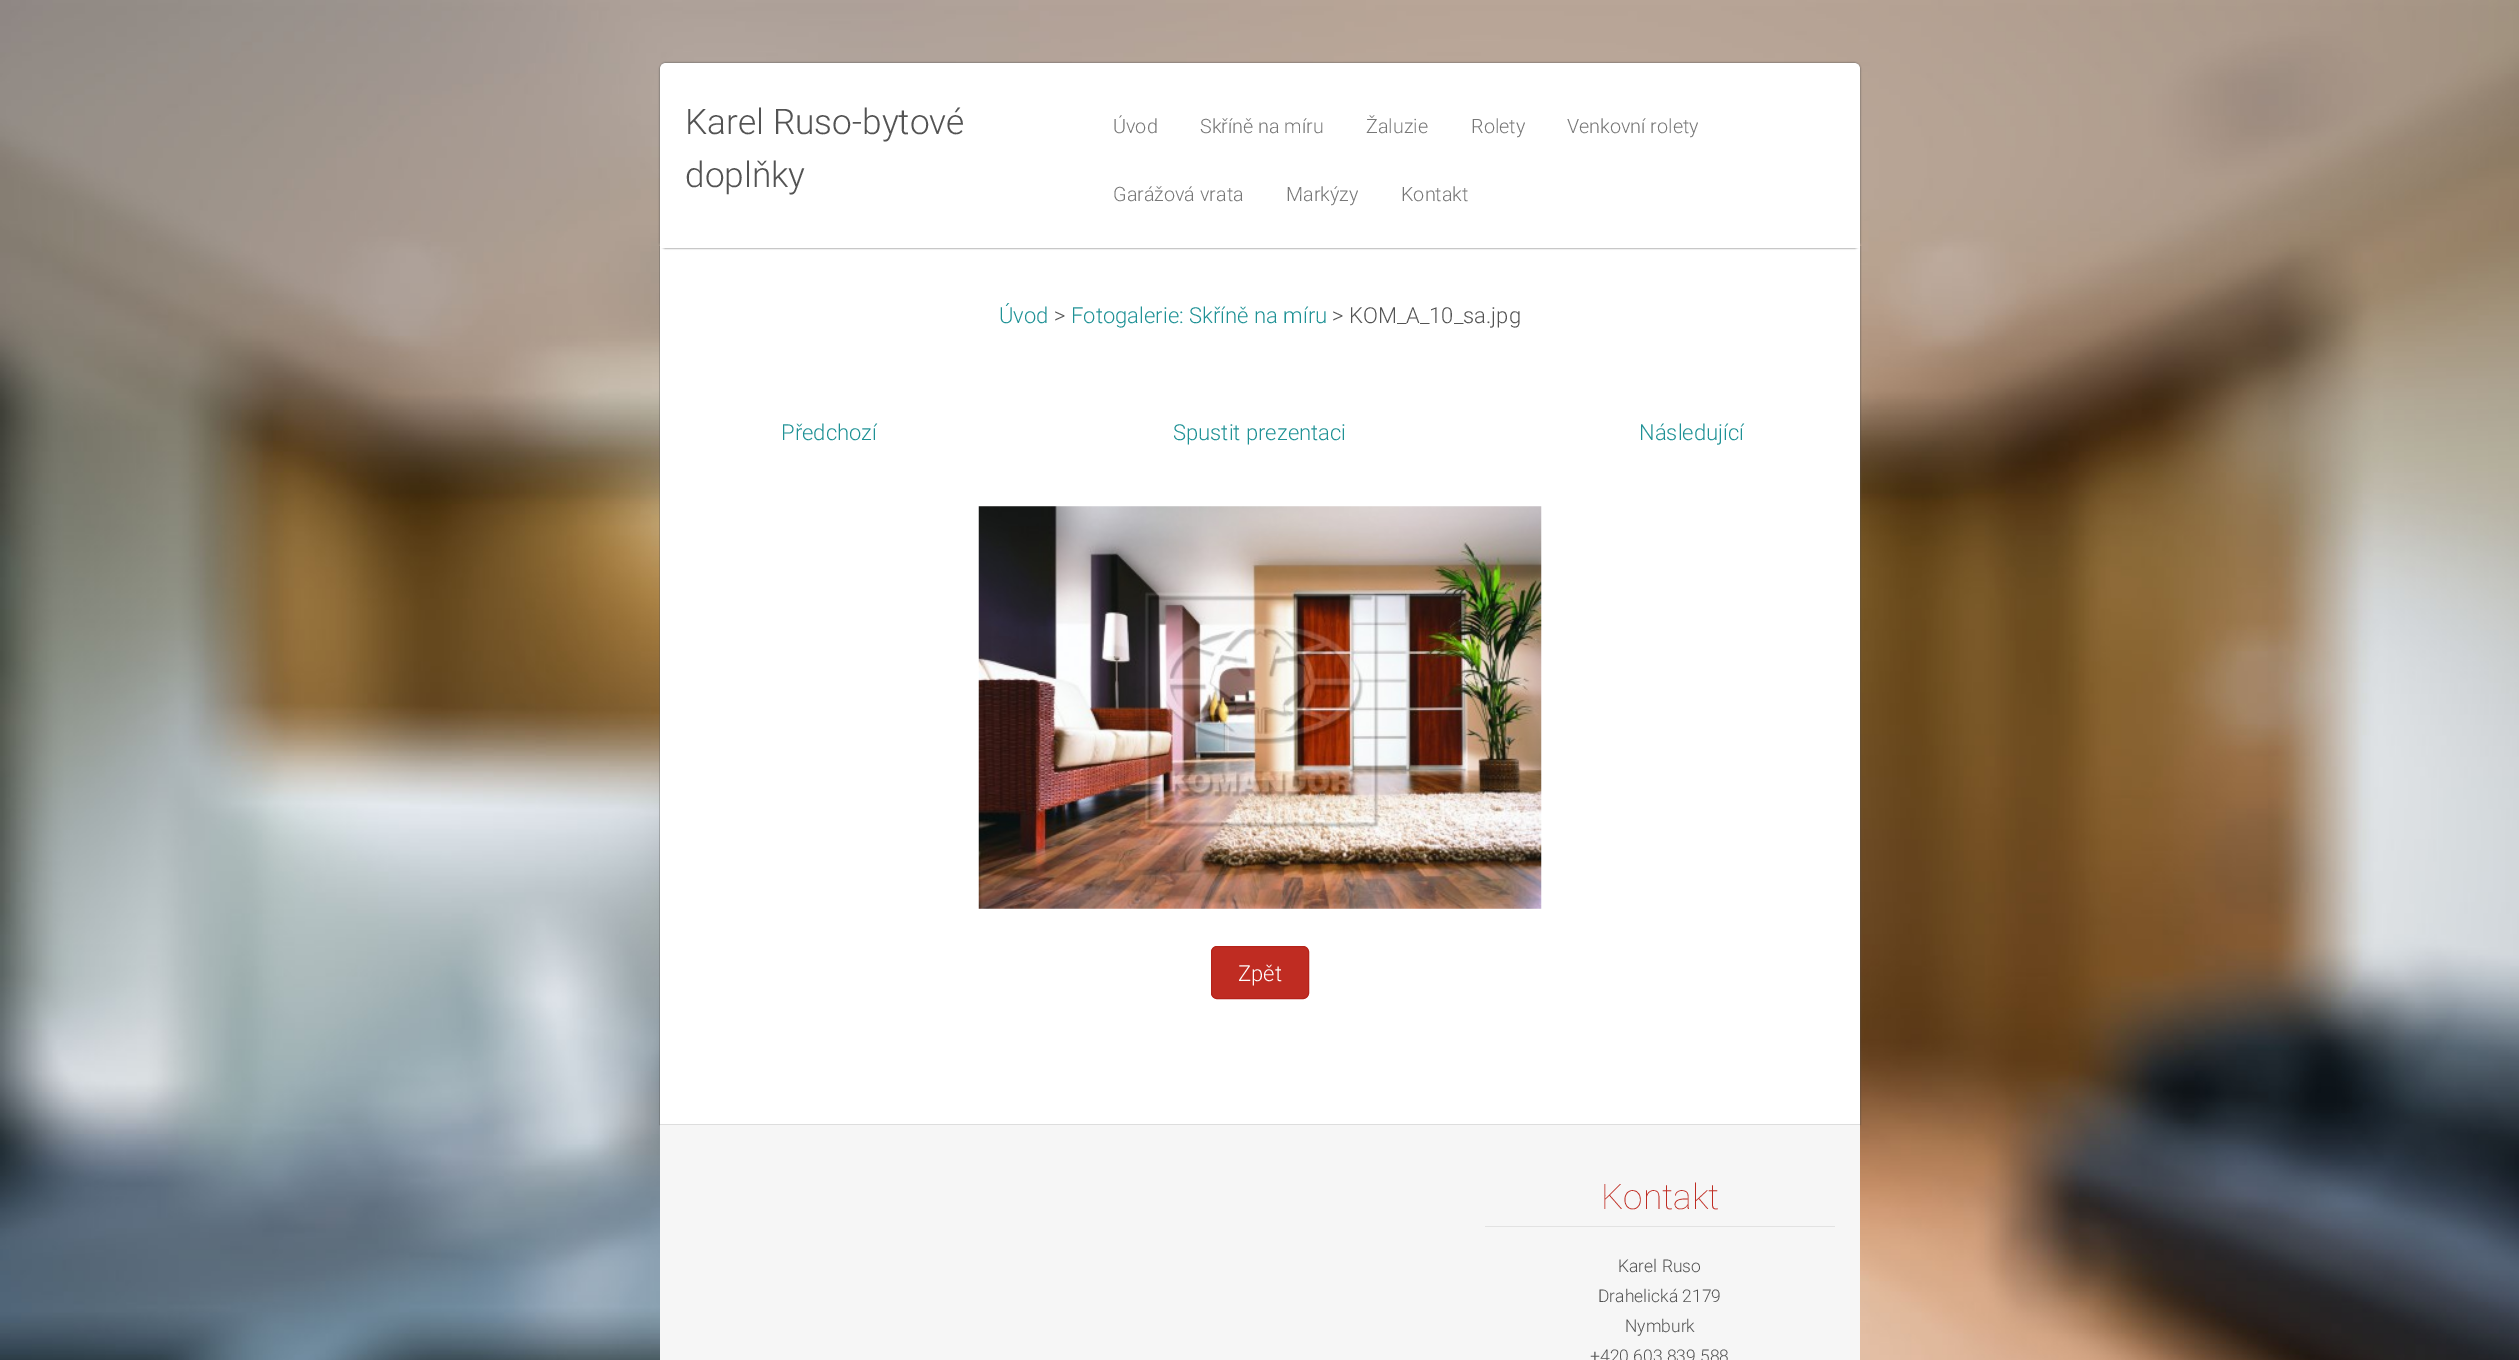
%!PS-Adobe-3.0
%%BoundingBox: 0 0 2519 1360
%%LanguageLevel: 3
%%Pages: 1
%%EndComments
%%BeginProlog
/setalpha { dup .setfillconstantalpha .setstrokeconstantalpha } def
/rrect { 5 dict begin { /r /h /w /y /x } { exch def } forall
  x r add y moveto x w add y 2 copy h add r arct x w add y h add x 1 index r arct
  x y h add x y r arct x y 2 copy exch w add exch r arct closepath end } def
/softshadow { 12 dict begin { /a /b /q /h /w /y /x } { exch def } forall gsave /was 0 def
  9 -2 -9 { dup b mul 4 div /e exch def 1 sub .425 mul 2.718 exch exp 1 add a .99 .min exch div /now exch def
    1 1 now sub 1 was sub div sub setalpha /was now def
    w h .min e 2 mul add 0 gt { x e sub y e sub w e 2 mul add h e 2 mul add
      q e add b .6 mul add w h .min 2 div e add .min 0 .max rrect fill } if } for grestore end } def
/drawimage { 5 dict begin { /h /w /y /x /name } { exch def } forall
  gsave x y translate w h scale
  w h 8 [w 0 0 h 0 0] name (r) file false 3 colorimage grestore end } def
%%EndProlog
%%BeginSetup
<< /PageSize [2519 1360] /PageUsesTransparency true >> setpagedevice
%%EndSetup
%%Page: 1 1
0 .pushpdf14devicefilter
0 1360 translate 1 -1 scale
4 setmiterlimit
1 setgray
0 0 2519 1360 rectfill
(images/1.raw) 0 0 2519 1360 drawimage
0.32 setalpha
0.298 setgray
659.5 246.5 1201 878 rectstroke
1 setalpha
1 setgray
660 248 1200 876 rectfill
0.298 setgray
660 63 1200 185 6 1 1 softshadow
1 setgray
newpath 666 63 moveto 1854 63 lineto 1857.5 63 1860 65.5 1860 69 curveto 1860 248 lineto 660 248 lineto 660 69 lineto 660 65.5 662.5 63 666 63 curveto closepath fill
(images/2.raw) 978 506 564 403 drawimage
0.749 0.173 0.133 setrgbcolor
1211.5 946.5 97 52 5.5 rrect gsave fill grestore
0.71 0.137 0.102 setrgbcolor
stroke
0.965 setgray
660 1125 1200 235 rectfill
0.867 setgray
660 1124 1200 1 rectfill
0.886 setgray
1485 1226 350 1 rectfill
/Roboto-Light [35.25 0 0 -35.25 0 0] selectfont
0.325 setgray
685 134 moveto (Karel Ruso-bytové) show
685 187 moveto (doplňky) show
/Roboto-Light [19.75 0 0 -19.75 0 0] selectfont
0.467 setgray
1113 133 moveto (Úvod) show
1200 133 moveto (Skříně na míru) show
1366 133 moveto (Žaluzie) show
1471 133 moveto (Rolety) show
1567 133 moveto (Venkovní rolety) show
1113 201 moveto (Garážová vrata) show
1286 201 moveto (Markýzy) show
1401 201 moveto (Kontakt) show
/Roboto-Light [22 0 0 -22 0 0] selectfont
0.118 0.569 0.584 setrgbcolor
999 323 moveto (Úvod) show
0.325 setgray
1054 323 moveto (>) show
0.118 0.569 0.584 setrgbcolor
1071 323 moveto (Fotogalerie: Skříně na míru) show
0.325 setgray
1332 323 moveto (> KOM_A_10_sa.jpg) show
0.118 0.569 0.584 setrgbcolor
781 440 moveto (Předchozí) show
1173 440 moveto (Spustit prezentaci) show
1639 440 moveto (Následující) show
1 setgray
1238 981 moveto (Zpět) show
/Roboto-Thin [35.25 0 0 -35.25 0 0] selectfont
0.749 0.173 0.133 setrgbcolor
1601 1209 moveto (Kontakt) show
/Roboto-Light [17.5 0 0 -17.5 0 0] selectfont
0.325 setgray
1618 1272 moveto (Karel Ruso) show
1598 1302 moveto (Drahelická 2179) show
1625 1332 moveto (Nymburk) show
1590 1362 moveto (+420 603 839 588) show
.poppdf14devicefilter showpage
%%EOF
